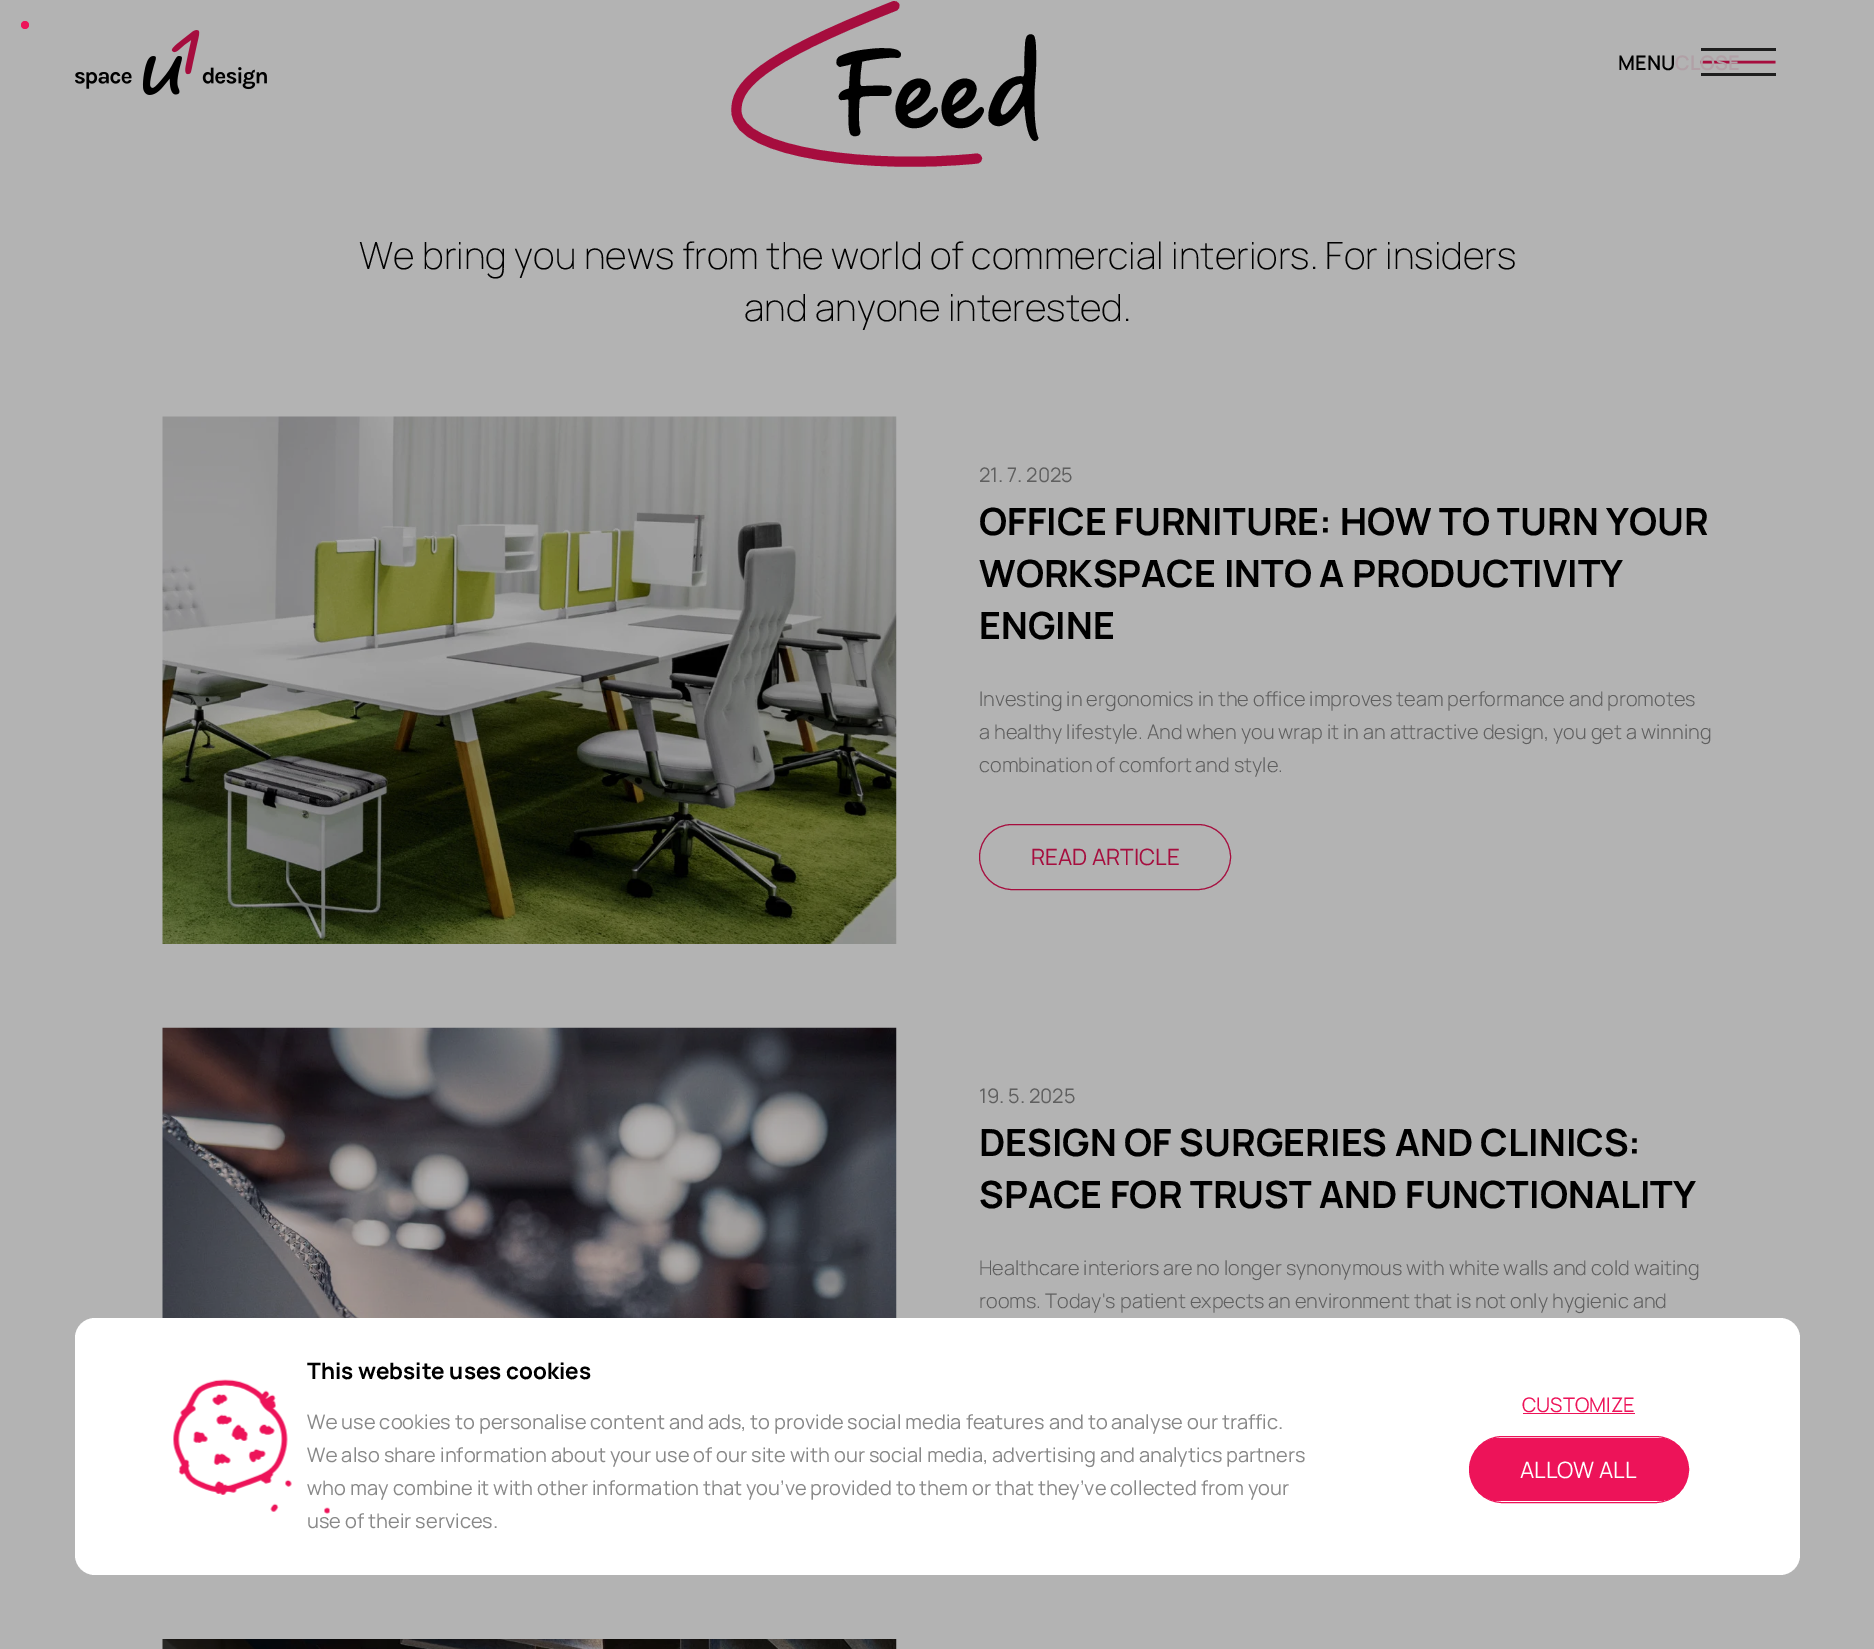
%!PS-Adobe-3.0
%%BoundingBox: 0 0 1874 1649
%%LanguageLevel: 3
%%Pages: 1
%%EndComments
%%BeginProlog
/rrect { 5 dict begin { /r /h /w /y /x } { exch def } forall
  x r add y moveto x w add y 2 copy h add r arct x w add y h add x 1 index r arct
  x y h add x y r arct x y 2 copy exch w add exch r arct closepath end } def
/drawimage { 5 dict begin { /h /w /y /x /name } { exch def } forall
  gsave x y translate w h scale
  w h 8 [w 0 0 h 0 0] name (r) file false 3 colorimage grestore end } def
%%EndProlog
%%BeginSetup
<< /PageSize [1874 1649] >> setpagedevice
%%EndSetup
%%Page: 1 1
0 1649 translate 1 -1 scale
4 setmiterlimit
0.702 setgray
0 0 1874 1649 rectfill
0.929 0.075 0.349 setrgbcolor
newpath 25 25 4 0 360 arc closepath fill
0.651 0.051 0.243 setrgbcolor
10 setlinewidth
1 setlinecap
1 setlinejoin
newpath 894.5 6 moveto 756 60.5 735 87 736.5 112 curveto 738.5 154 874 169 977 158.5 curveto stroke
(images/1.raw) 162 416 735 528 drawimage
1 setlinewidth
0 setlinecap
0 setlinejoin
979.5 824.5 251 65 32.5 rrect stroke
(images/2.raw) 162 1027 735 291 drawimage
(images/3.raw) 162 1639 735 10 drawimage
(images/4.raw) 75 30 192 65 drawimage
0.118 setgray
1701 48 75 3 rectfill
0.651 0.051 0.243 setrgbcolor
2.5 setlinewidth
newpath 1700.5 62 moveto 1775.5 62 lineto stroke
0.118 setgray
1701 73 75 3 rectfill
1 setgray
75 1318 1725 257 20 rrect fill
0.929 0.075 0.349 setrgbcolor
1523 1413 112 1 rectfill
1 setlinewidth
1469.5 1436.5 219 66 33 rrect stroke
gsave
1470 1438 218 63 31.5 rrect clip newpath
1468 1435 222 69 34.5 rrect fill
grestore
/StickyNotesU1-Regular [125 0 0 -125 0 0] selectfont
0 setgray
834 128 moveto (Feed) show
/Manrope-ExtraLight [37.5 0 0 -37.5 0 0] selectfont
359 269 moveto (We bring you news from the world of commercial interiors. For insiders) show
744 321 moveto (and anyone interested.) show
/Manrope-Regular [20 0 0 -20 0 0] selectfont
0.373 setgray
979 482 moveto (21. 7. 2025) show
/Manrope-Bold [37.5 0 0 -37.5 0 0] selectfont
0 setgray
979 535 moveto (OFFICE FURNITURE: HOW TO TURN YOUR) show
979 587 moveto (WORKSPACE INTO A PRODUCTIVITY) show
979 639 moveto (ENGINE) show
/Manrope-Light [20 0 0 -20 0 0] selectfont
0.373 setgray
979 706 moveto (Investing in ergonomics in the office improves team performance and promotes) show
979 739 moveto (a healthy lifestyle. And when you wrap it in an attractive design, you get a winning) show
979 772 moveto (combination of comfort and style.) show
/Manrope-Regular [22.5 0 0 -22.5 0 0] selectfont
0.651 0.051 0.243 setrgbcolor
1031 865 moveto (READ ARTICLE) show
/Manrope-Regular [20 0 0 -20 0 0] selectfont
0.373 setgray
979 1103 moveto (19. 5. 2025) show
/Manrope-Bold [37.5 0 0 -37.5 0 0] selectfont
0 setgray
979 1156 moveto (DESIGN OF SURGERIES AND CLINICS:) show
979 1208 moveto (SPACE FOR TRUST AND FUNCTIONALITY) show
/Manrope-Light [20 0 0 -20 0 0] selectfont
0.373 setgray
979 1275 moveto (Healthcare interiors are no longer synonymous with white walls and cold waiting) show
979 1308 moveto (rooms. Today's patient expects an environment that is not only hygienic and) show
/Manrope-SemiBold [20 0 0 -20 0 0] selectfont
0 setgray
1618 70 moveto (MENU) show
0.694 0.627 0.651 setrgbcolor
1675 70 moveto (CLOSE) show
/Manrope-Bold [22.5 0 0 -22.5 0 0] selectfont
0 setgray
307 1379 moveto (This website uses cookies) show
/Manrope-Regular [20 0 0 -20 0 0] selectfont
0.533 setgray
307 1429 moveto (We use cookies to personalise content and ads, to provide social media features and to analyse our traffic.) show
307 1462 moveto (We also share information about your use of our site with our social media, advertising and analytics partners) show
307 1495 moveto (who may combine it with other information that you’ve provided to them or that they’ve collected from your) show
307 1528 moveto (use of their services.) show
(images/5.raw) 173 1379 157 135 drawimage
0.929 0.075 0.349 setrgbcolor
1522 1412 moveto (CUSTOMIZE) show
/Manrope-Regular [22.5 0 0 -22.5 0 0] selectfont
1 setgray
1520 1478 moveto (ALLOW ALL) show
showpage
%%EOF
